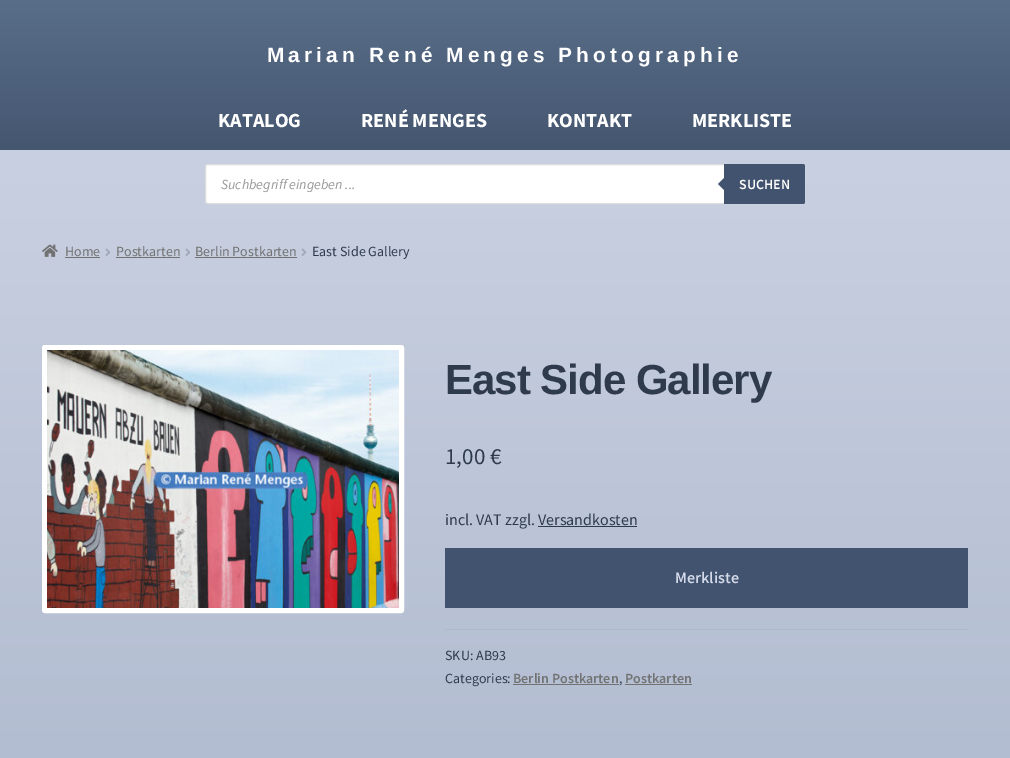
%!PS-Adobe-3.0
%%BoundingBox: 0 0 1010 758
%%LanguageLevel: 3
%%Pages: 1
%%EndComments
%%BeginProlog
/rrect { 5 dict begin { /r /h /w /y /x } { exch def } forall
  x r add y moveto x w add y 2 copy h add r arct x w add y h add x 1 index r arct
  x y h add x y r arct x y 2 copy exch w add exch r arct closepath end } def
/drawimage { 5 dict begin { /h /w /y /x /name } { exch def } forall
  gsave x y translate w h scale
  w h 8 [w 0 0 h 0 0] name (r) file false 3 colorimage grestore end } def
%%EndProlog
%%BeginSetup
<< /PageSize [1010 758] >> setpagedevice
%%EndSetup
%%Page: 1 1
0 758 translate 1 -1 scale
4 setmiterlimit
1 setgray
0 0 1010 758 rectfill
gsave newpath 0 150 moveto 1010 150 lineto 1010 758 lineto 0 758 lineto closepath clip newpath
<< /ShadingType 2 /ColorSpace /DeviceRGB /Coords [505 0 505 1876] /Extend [true true] /Function << /FunctionType 2 /Domain [0 1] /C0 [0.808 0.835 0.898] /C1 [0.545 0.604 0.702] /N 1 >> >> shfill grestore
gsave newpath 0 0 moveto 1010 0 lineto 1010 150 lineto 0 150 lineto closepath clip newpath
<< /ShadingType 2 /ColorSpace /DeviceRGB /Coords [505 0 505 150] /Extend [true true] /Function << /FunctionType 2 /Domain [0 1] /C0 [0.349 0.431 0.537] /C1 [0.271 0.337 0.439] /N 1 >> >> shfill grestore
205.5 164.5 599 39 2.5 rrect gsave fill grestore
0.867 setgray
stroke
0.259 0.325 0.435 setrgbcolor
newpath 724 164 moveto 803 164 lineto 804 164 805 165 805 166 curveto 805 202 lineto 805 203 804 204 803 204 curveto 724 204 lineto closepath fill
newpath 726 176 moveto 726 192 lineto 718 184 lineto closepath fill
(images/1.raw) 42 244 16 13 drawimage
0.447 setgray
65 257 35 1 rectfill
(images/2.raw) 105 248 6 8 drawimage
116 257 64 1 rectfill
(images/2.raw) 185 248 6 8 drawimage
195 257 102 1 rectfill
(images/2.raw) 301 248 6 8 drawimage
1 setgray
5 setlinewidth
44.5 347.5 357 263 0.5 rrect stroke
(images/3.raw) 47 350 352 258 drawimage
0.184 0.231 0.302 setrgbcolor
538 526 99 1 rectfill
0.259 0.325 0.435 setrgbcolor
445 548 523 60 rectfill
0.686 0.718 0.788 setrgbcolor
445 629 523 1 rectfill
0.447 setgray
513 684 106 1 rectfill
625 684 67 1 rectfill
/LiberationSans-Bold [20.8 0 0 -20.8 0 0] selectfont
1 setgray
267 62 moveto 4.15 0 (Marian René Menges Photographie) ashow
/SourceSansPro-Bold [20 0 0 -20 0 0] selectfont
218 127 moveto (KATALOG) show
361 127 moveto (RENÉ MENGES) show
547 127 moveto (KONTAKT) show
692 127 moveto (MERKLISTE) show
/SourceSansPro-Italic [14 0 0 -14 0 0] selectfont
0.6 setgray
221 189 moveto (Suchbegriff eingeben ...) show
/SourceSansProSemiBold-SemiBold [14 0 0 -14 0 0] selectfont
1 setgray
739 189 moveto (SUCHEN) show
/SourceSansPro-Regular [14 0 0 -14 0 0] selectfont
0.447 setgray
65 256 moveto (Home) show
116 256 moveto (Postkarten) show
195 256 moveto (Berlin Postkarten) show
0.184 0.231 0.302 setrgbcolor
312 256 moveto (East Side Gallery) show
/LiberationSans-Bold [42 0 0 -42 0 0] selectfont
445 394 moveto -1 0 (East Side Gallery) ashow
/SourceSansPro-Regular [23 0 0 -23 0 0] selectfont
445 464 moveto (1,00 €) show
/SourceSansPro-Regular [16 0 0 -16 0 0] selectfont
445 525 moveto (incl. VAT zzgl. Versandkosten) show
/SourceSansProSemiBold-SemiBold [16 0 0 -16 0 0] selectfont
0.831 0.855 0.918 setrgbcolor
675 583 moveto (Merkliste) show
/SourceSansPro-Regular [14 0 0 -14 0 0] selectfont
0.184 0.231 0.302 setrgbcolor
445 660 moveto (SKU: AB93) show
445 683 moveto (Categories:) show
/SourceSansProSemiBold-SemiBold [14 0 0 -14 0 0] selectfont
0.447 setgray
513 683 moveto (Berlin Postkarten) show
/SourceSansPro-Regular [14 0 0 -14 0 0] selectfont
0.184 0.231 0.302 setrgbcolor
619 683 moveto (,) show
/SourceSansProSemiBold-SemiBold [14 0 0 -14 0 0] selectfont
0.447 setgray
625 683 moveto (Postkarten) show
showpage
%%EOF
